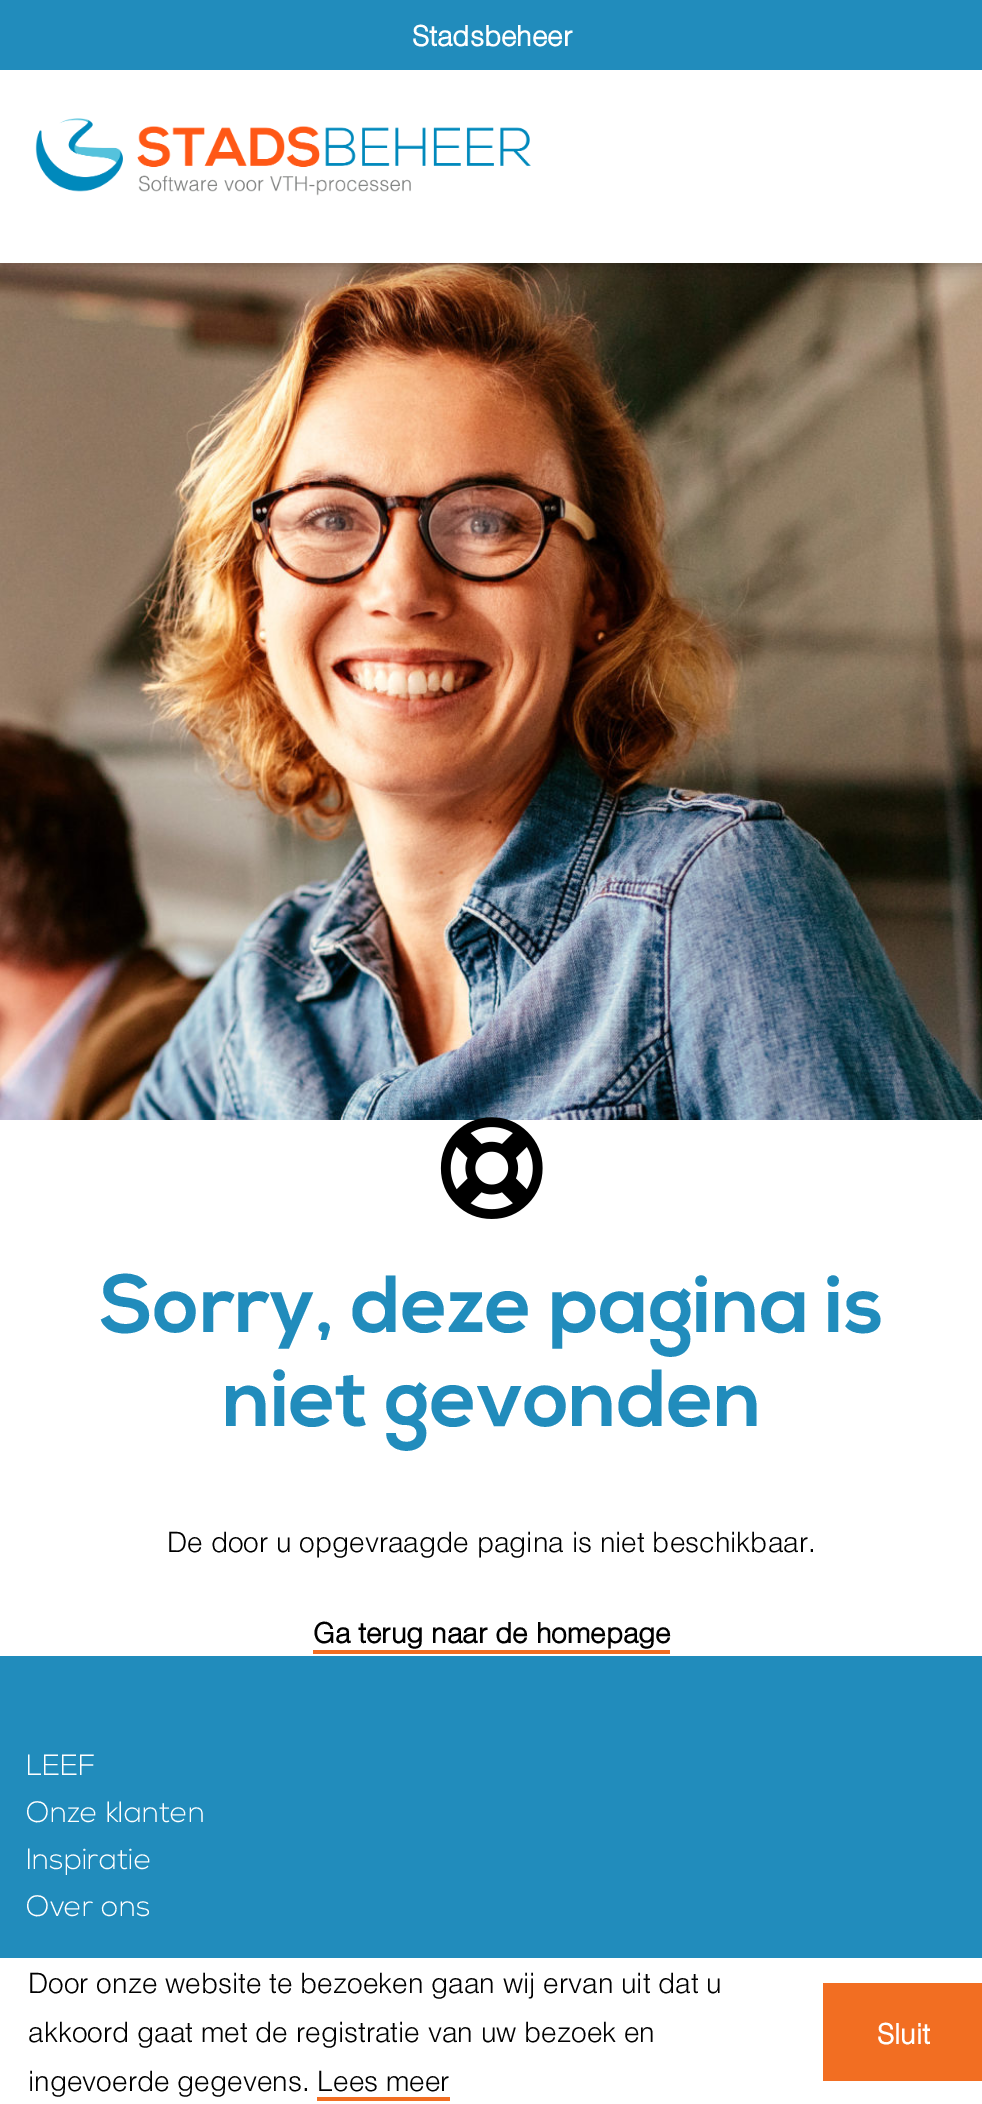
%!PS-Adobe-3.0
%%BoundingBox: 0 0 982 2104
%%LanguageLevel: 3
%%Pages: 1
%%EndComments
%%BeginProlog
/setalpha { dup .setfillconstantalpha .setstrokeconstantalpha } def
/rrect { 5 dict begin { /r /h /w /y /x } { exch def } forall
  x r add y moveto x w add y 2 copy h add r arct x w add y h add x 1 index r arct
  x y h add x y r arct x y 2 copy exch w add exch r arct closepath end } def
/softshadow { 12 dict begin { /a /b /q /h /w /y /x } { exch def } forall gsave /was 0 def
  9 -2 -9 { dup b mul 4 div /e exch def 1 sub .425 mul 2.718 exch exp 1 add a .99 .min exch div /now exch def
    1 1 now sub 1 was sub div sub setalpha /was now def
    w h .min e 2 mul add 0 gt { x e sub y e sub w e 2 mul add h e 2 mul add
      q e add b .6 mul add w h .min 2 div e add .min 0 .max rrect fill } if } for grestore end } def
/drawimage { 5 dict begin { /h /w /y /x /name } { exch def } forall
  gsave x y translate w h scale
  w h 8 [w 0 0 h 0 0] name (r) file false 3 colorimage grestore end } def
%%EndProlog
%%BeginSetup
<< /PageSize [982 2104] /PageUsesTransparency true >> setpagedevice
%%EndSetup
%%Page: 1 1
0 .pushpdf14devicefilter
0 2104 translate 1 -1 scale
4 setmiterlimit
1 setgray
0 0 982 2104 rectfill
(images/2.raw) 0 263 982 857 drawimage
0 setgray
0 2 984 262 0 11.5 0.19 softshadow
0 0 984 263 0 9 0.2 softshadow
1 setgray
0 70 982 193 rectfill
(images/1.raw) 35 118 496 78 drawimage
0.129 0.549 0.737 setrgbcolor
0 0 982 70 rectfill
(images/3.raw) 440 1117 103 102 drawimage
0.949 0.431 0.133 setrgbcolor
313 1650 357 4 rectfill
0.129 0.549 0.737 setrgbcolor
0 1656 982 302 rectfill
0.949 0.431 0.133 setrgbcolor
317 2097 133 4 rectfill
823 1983 159 98 rectfill
/Helvetica-Bold [28 0 0 -28 0 0] selectfont
1 setgray
412 46 moveto (Stadsbeheer) show
/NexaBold-Bold [77 0 0 -77 0 0] selectfont
0.129 0.549 0.737 setrgbcolor
100 1332 moveto (Sorry, deze pagina is) show
223 1426 moveto (niet gevonden) show
/Helvetica-Light [28 0 0 -28 0 0] selectfont
0 setgray
167 1552 moveto (De door u opgevraagde pagina is niet beschikbaar.) show
/Helvetica-Bold [28 0 0 -28 0 0] selectfont
313 1643 moveto (Ga terug naar de homepage) show
/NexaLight-Light [28 0 0 -28 0 0] selectfont
1 setgray
26 1775 moveto (LEEF) show
26 1822 moveto (Onze klanten) show
26 1869 moveto (Inspiratie) show
26 1916 moveto (Over ons) show
/Helvetica-Light [28 0 0 -28 0 0] selectfont
0 setgray
28 1993 moveto (Door onze website te bezoeken gaan wij ervan uit dat u) show
28 2042 moveto (akkoord gaat met de registratie van uw bezoek en) show
28 2091 moveto (ingevoerde gegevens. Lees meer) show
/Helvetica-Bold [28 0 0 -28 0 0] selectfont
1 setgray
877 2044 moveto (Sluit) show
.poppdf14devicefilter showpage
%%EOF
